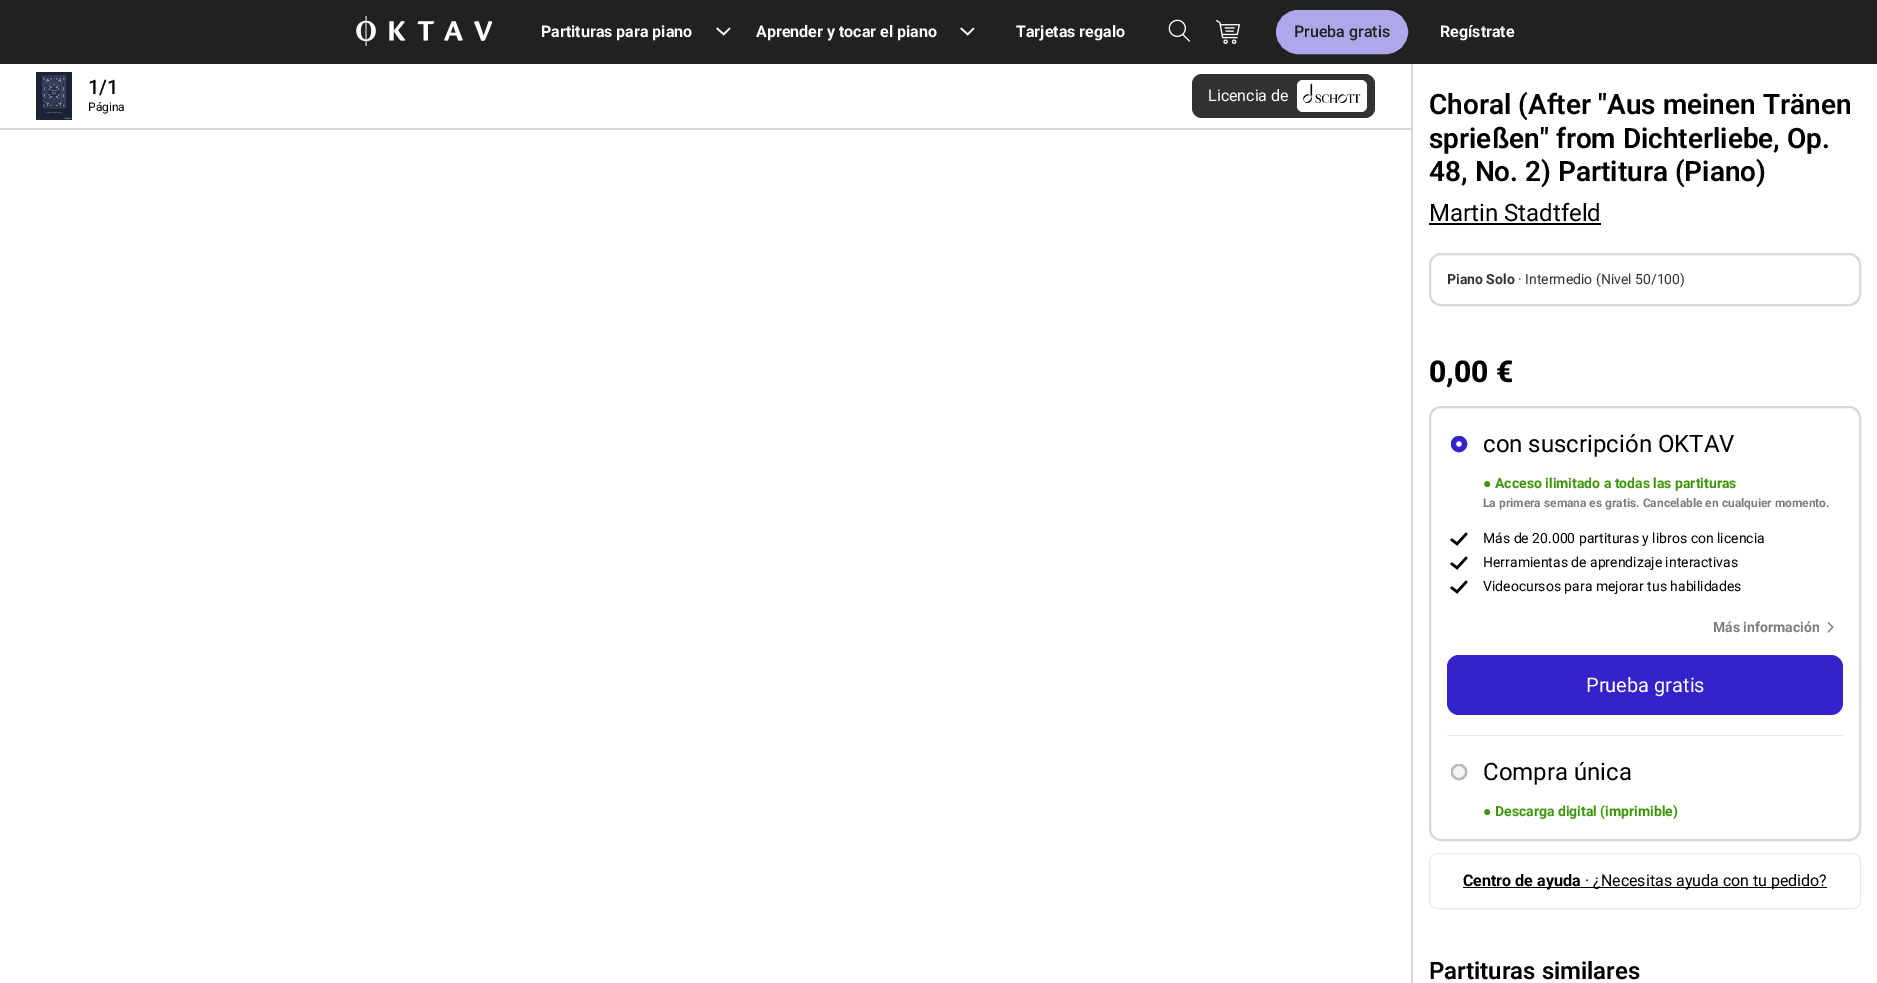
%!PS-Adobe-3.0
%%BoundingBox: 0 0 1877 983
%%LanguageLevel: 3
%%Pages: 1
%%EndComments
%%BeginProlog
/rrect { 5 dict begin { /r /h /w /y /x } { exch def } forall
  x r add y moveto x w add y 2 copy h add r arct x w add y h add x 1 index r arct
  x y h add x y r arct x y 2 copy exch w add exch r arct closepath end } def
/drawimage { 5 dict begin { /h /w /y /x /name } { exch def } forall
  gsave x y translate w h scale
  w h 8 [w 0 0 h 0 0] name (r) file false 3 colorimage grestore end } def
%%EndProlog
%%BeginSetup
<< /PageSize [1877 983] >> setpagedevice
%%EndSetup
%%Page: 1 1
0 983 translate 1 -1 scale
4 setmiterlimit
1 setgray
0 0 1877 983 rectfill
0.129 setgray
0 0 1877 64 rectfill
(images/1.raw) 356 15 137 32 drawimage
(images/2.raw) 716 27 15 9 drawimage
(images/2.raw) 960 27 15 9 drawimage
(images/3.raw) 1168 19 22 23 drawimage
(images/4.raw) 1216 20 24 24 drawimage
0.682 0.655 0.914 setrgbcolor
1277 11 130 42 21 rrect gsave fill grestore
2 setlinewidth
stroke
0.847 setgray
1411 64 2 919 rectfill
0 128 1411 2 rectfill
(images/5.raw) 36 72 36 48 drawimage
0.196 setgray
1192 74 183 44 10 rrect fill
1 setgray
1297 80 70 32 6 rrect fill
(images/6.raw) 1303 83 58 20 drawimage
0 setgray
1429 223 172 2 rectfill
0.847 setgray
1430 254 430 51 11 rrect stroke
1430 407 430 433 11 rrect stroke
0 0.459 1 setrgbcolor
1 setlinewidth
newpath 1459 444 7.5 0 360 arc closepath stroke
1 setgray
newpath 1459 444 5.5 0 360 arc closepath gsave fill grestore
0.208 0.137 0.788 setrgbcolor
5 setlinewidth
stroke
(images/7.raw) 1450 532 18 14 drawimage
(images/7.raw) 1450 556 18 14 drawimage
(images/7.raw) 1450 580 18 14 drawimage
(images/8.raw) 1827 622 7 11 drawimage
1447 655 396 60 12 rrect fill
0.922 setgray
1447 735 396 1 rectfill
0.463 setgray
1 setlinewidth
newpath 1459 772 7.5 0 360 arc closepath stroke
0.965 setgray
newpath 1459 772 7 0 360 arc closepath gsave fill grestore
0.733 setgray
2 setlinewidth
stroke
0.922 setgray
1 setlinewidth
1429.5 853.5 431 55 7.5 rrect stroke
0 setgray
1463 887 364 1 rectfill
/Roboto-Bold [16 0 0 -16 0 0] selectfont
1 setgray
541 37 moveto (Partituras para piano) show
756 37 moveto (Aprender y tocar el piano) show
1016 37 moveto (Tarjetas regalo) show
/Roboto-Medium [16 0 0 -16 0 0] selectfont
0.129 setgray
1294 37 moveto (Prueba gratis) show
/Roboto-Bold [16 0 0 -16 0 0] selectfont
1 setgray
1440 37 moveto (Regístrate) show
/Roboto-Medium [20 0 0 -20 0 0] selectfont
0 setgray
88 94 moveto (1/1) show
/Roboto-Regular [12 0 0 -12 0 0] selectfont
88 111 moveto (Página) show
/Roboto-Regular [16 0 0 -16 0 0] selectfont
1 setgray
1208 101 moveto (Licencia de) show
/Roboto-SemiBold [28 0 0 -28 0 0] selectfont
0 setgray
1429 114 moveto (Choral \(After "Aus meinen Tränen) show
1429 148 moveto (sprießen" from Dichterliebe, Op.) show
1429 181 moveto (48, No. 2\) Partitura \(Piano\)) show
/Roboto-Regular [24 0 0 -24 0 0] selectfont
1429 221 moveto (Martin Stadtfeld) show
/Roboto-Bold [14 0 0 -14 0 0] selectfont
0.196 setgray
1447 284 moveto (Piano Solo) show
/Roboto-Regular [14 0 0 -14 0 0] selectfont
1518 284 moveto (· Intermedio \(Nivel 50/100\)) show
/Roboto-ExtraBold [30 0 0 -30 0 0] selectfont
0 setgray
1429 382 moveto (0,00 €) show
/Roboto-Regular [24 0 0 -24 0 0] selectfont
1483 452 moveto (con suscripción OKTAV) show
/LiberationSans-Bold [14 0 0 -14 0 0] selectfont
0.231 0.588 0.027 setrgbcolor
1483 488 moveto (●) show
/Roboto-Bold [14 0 0 -14 0 0] selectfont
1495 488 moveto (Acceso ilimitado a todas las partituras) show
/Roboto-Bold [12 0 0 -12 0 0] selectfont
0.486 setgray
1483 507 moveto (La primera semana es gratis. Cancelable en cualquier momento.) show
/Roboto-Regular [14 0 0 -14 0 0] selectfont
0 setgray
1483 543 moveto (Más de 20.000 partituras y libros con licencia) show
1483 567 moveto (Herramientas de aprendizaje interactivas) show
1483 591 moveto (Videocursos para mejorar tus habilidades) show
/Roboto-Bold [14 0 0 -14 0 0] selectfont
0.486 setgray
1713 632 moveto (Más información) show
/Roboto-Regular [20 0 0 -20 0 0] selectfont
1 setgray
1586 692 moveto (Prueba gratis) show
/Roboto-Regular [24 0 0 -24 0 0] selectfont
0 setgray
1483 780 moveto (Compra única) show
/LiberationSans-Bold [14 0 0 -14 0 0] selectfont
0.231 0.588 0.027 setrgbcolor
1483 816 moveto (●) show
/Roboto-Bold [14 0 0 -14 0 0] selectfont
1495 816 moveto (Descarga digital \(imprimible\)) show
/Roboto-Bold [16 0 0 -16 0 0] selectfont
0 setgray
1463 886 moveto (Centro de ayuda) show
/Roboto-Regular [16 0 0 -16 0 0] selectfont
1585 886 moveto (· ¿Necesitas ayuda con tu pedido?) show
/Roboto-SemiBold [24 0 0 -24 0 0] selectfont
1429 979 moveto (Partituras similares) show
showpage
%%EOF
